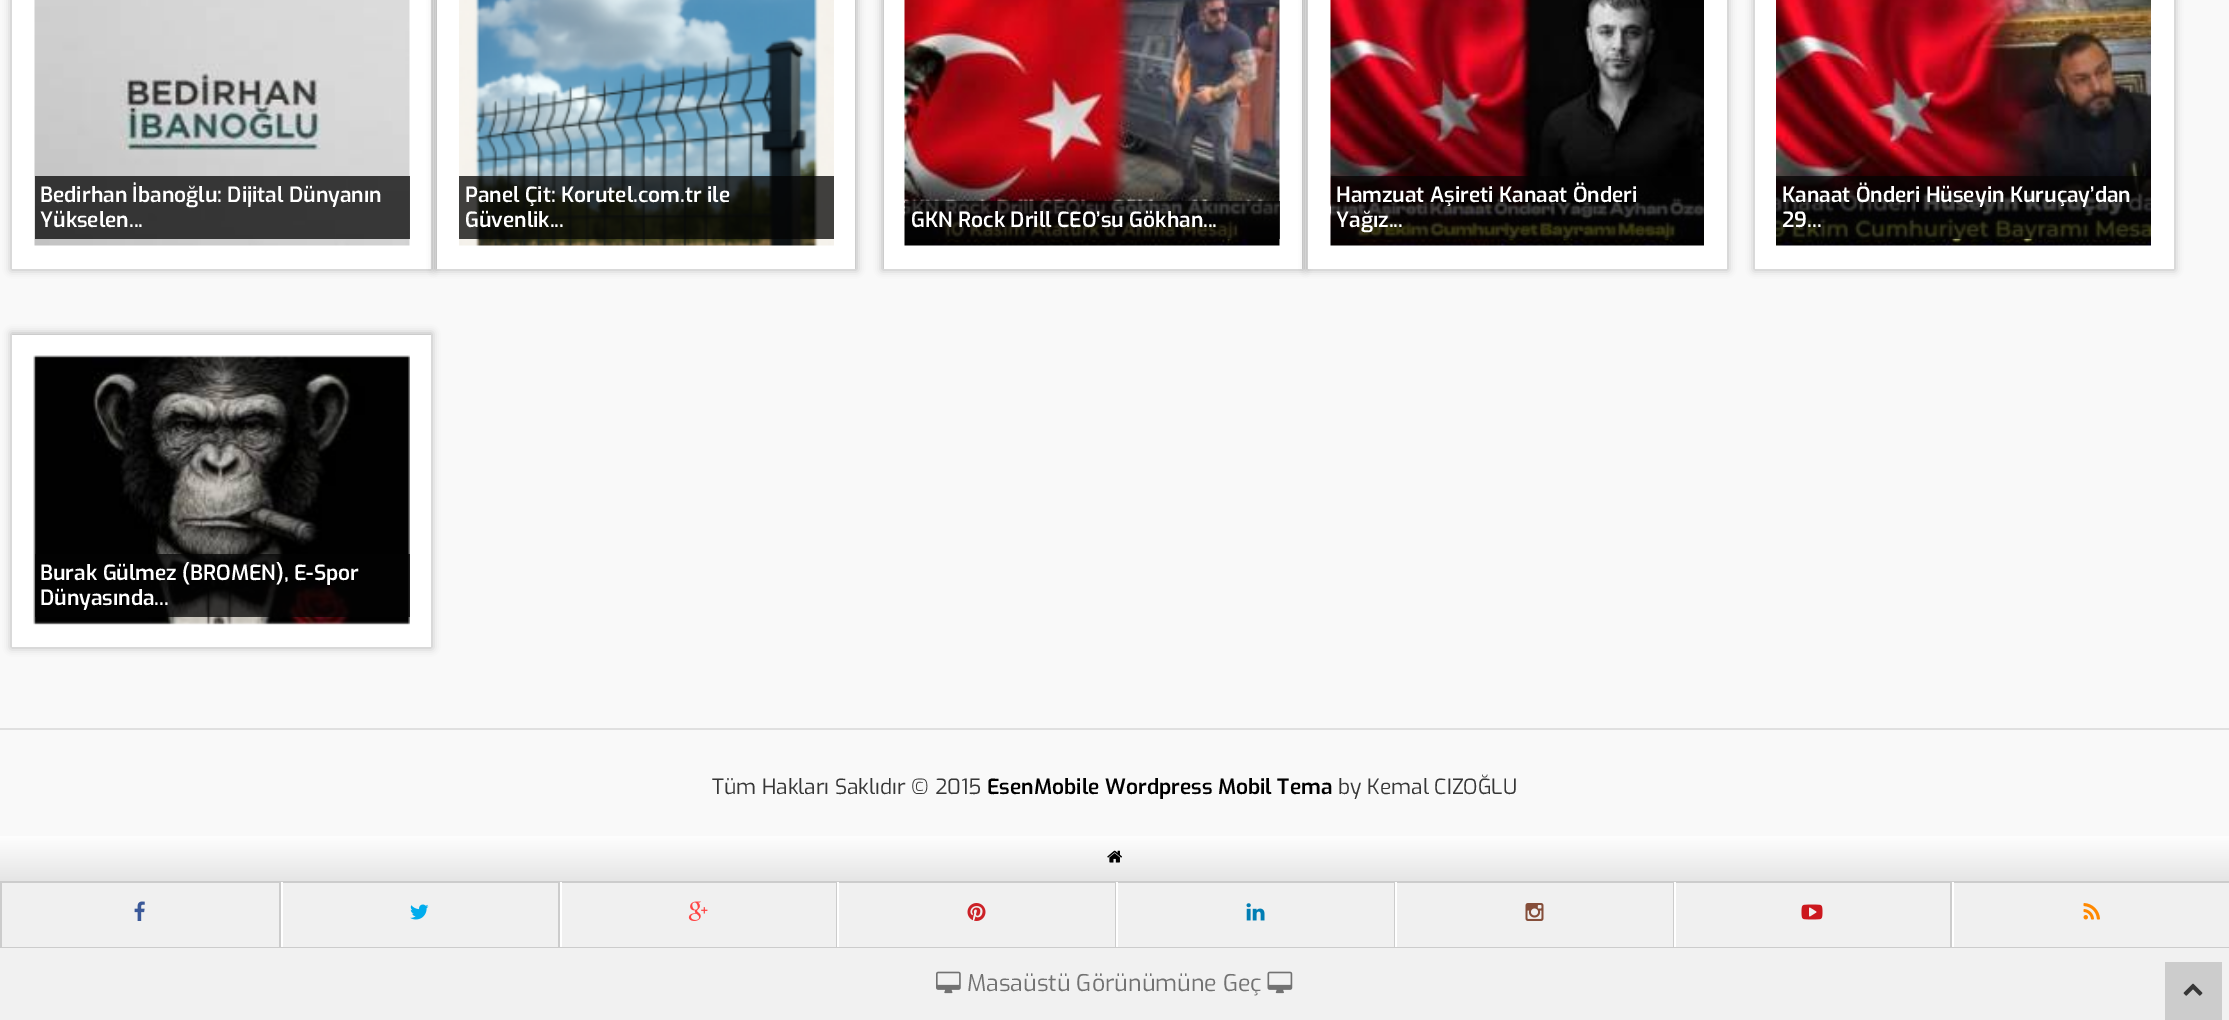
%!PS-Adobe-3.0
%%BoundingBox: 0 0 2229 1020
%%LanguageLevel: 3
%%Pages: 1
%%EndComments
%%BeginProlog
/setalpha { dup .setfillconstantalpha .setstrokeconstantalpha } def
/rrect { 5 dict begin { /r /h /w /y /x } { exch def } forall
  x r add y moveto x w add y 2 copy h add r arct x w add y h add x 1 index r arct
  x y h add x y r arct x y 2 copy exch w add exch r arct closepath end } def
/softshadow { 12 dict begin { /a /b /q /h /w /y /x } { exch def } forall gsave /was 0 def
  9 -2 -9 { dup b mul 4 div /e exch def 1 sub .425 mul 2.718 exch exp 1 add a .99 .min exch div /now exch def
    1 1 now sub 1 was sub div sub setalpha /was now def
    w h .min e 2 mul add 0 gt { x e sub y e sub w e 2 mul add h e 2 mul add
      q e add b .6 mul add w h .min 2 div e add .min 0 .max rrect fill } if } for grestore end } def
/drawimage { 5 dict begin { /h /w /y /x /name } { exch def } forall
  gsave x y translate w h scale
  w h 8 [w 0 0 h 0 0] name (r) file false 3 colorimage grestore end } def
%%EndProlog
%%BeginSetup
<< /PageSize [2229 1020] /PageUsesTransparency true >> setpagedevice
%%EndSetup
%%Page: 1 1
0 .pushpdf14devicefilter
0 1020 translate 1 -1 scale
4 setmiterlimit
0.976 setgray
0 0 2229 1020 rectfill
0 setgray
11 -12 421 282 0 4 0.25 softshadow
1 setgray
12 0 419 269 rectfill
(images/1.raw) 34 0 376 246 drawimage
0.75 setalpha
0.012 setgray
35 176 375 63 rectfill
1 setalpha
0 setgray
435 -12 422 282 0 4 0.25 softshadow
1 setgray
437 0 418 269 rectfill
(images/2.raw) 459 0 375 246 drawimage
0.75 setalpha
0.012 setgray
459 176 375 63 rectfill
1 setalpha
0 setgray
882 -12 422 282 0 4 0.25 softshadow
1 setgray
884 0 418 269 rectfill
(images/3.raw) 904 0 376 246 drawimage
0.75 setalpha
0.012 setgray
905 201 375 38 rectfill
1 setalpha
0 setgray
1307 -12 421 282 0 4 0.25 softshadow
1 setgray
1308 0 419 269 rectfill
(images/4.raw) 1330 0 374 246 drawimage
0.75 setalpha
0.012 setgray
1331 176 373 63 rectfill
1 setalpha
0 setgray
1754 -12 421 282 0 4 0.25 softshadow
1 setgray
1755 0 419 269 rectfill
(images/5.raw) 1776 0 375 246 drawimage
0.75 setalpha
0.012 setgray
1776 176 375 63 rectfill
1 setalpha
0 setgray
11 333 421 315 0 4 0.25 softshadow
1 setgray
12 335 419 312 rectfill
(images/6.raw) 33 355 377 270 drawimage
0.75 setalpha
0.012 setgray
35 554 375 63 rectfill
1 setalpha
0.878 setgray
0 728 2229 2 rectfill
gsave newpath 0 836 moveto 2229 836 lineto 2229 881 lineto 0 881 lineto closepath clip newpath
<< /ShadingType 2 /ColorSpace /DeviceRGB /Coords [1115 835 1115 881] /Extend [true true] /Function << /FunctionType 2 /Domain [0 1] /C0 [1 1 1] /C1 [0.898 0.898 0.898] /N 1 >> >> shfill grestore
(images/7.raw) 1107 850 15 13 drawimage
0.941 setgray
2 883 2227 64 rectfill
0.8 setgray
0 881 2229 2 rectfill
0 947 2229 1 rectfill
0 881 2 67 rectfill
279 882 2 65 rectfill
(images/8.raw) 134 901 11 20 drawimage
558 882 2 65 rectfill
1 setgray
281 882 2 65 rectfill
(images/9.raw) 410 904 19 16 drawimage
0.8 setgray
836 882 1 65 rectfill
1 setgray
560 882 2 65 rectfill
(images/10.raw) 688 901 20 20 drawimage
0.8 setgray
1115 882 1 65 rectfill
1 setgray
837 882 2 65 rectfill
(images/11.raw) 967 903 19 18 drawimage
0.8 setgray
1394 882 1 65 rectfill
1 setgray
1116 882 2 65 rectfill
(images/12.raw) 1246 903 19 18 drawimage
0.8 setgray
1673 882 1 65 rectfill
1 setgray
1395 882 2 65 rectfill
(images/13.raw) 1525 903 19 18 drawimage
0.8 setgray
1950 882 2 65 rectfill
1 setgray
1674 882 2 65 rectfill
(images/14.raw) 1801 904 22 16 drawimage
1952 882 2 65 rectfill
(images/15.raw) 2083 903 17 17 drawimage
0.945 setgray
0 948 2229 72 rectfill
0.8 setgray
2165 962 57 58 rectfill
(images/16.raw) 2183 983 20 13 drawimage
(images/17.raw) 936 971 25 23 drawimage
(images/18.raw) 1267 971 26 23 drawimage
/Exo-SemiBold [21 0 0 -21 0 0] selectfont
1 setgray
40 202 moveto (Bedirhan İbanoğlu: Dijital Dünyanın) show
40 227 moveto (Yükselen...) show
465 202 moveto (Panel Çit: Korutel.com.tr ile) show
465 227 moveto (Güvenlik...) show
911 227 moveto (GKN Rock Drill CEO’su Gökhan...) show
1336 202 moveto (Hamzuat Aşireti Kanaat Önderi) show
1336 227 moveto (Yağız...) show
1782 202 moveto (Kanaat Önderi Hüseyin Kuruçay’dan) show
1782 227 moveto (29...) show
40 580 moveto (Burak Gülmez \(BROMEN\), E-Spor) show
40 605 moveto (Dünyasında...) show
/Exo-Regular [21 0 0 -21 0 0] selectfont
0.216 setgray
712 794 moveto (Tüm Hakları Saklıdır © 2015) show
/Exo-SemiBold [21 0 0 -21 0 0] selectfont
0 setgray
987 794 moveto (EsenMobile Wordpress Mobil Tema) show
/Exo-Regular [21 0 0 -21 0 0] selectfont
0.216 setgray
1338 794 moveto (by Kemal CIZOĞLU) show
/Exo-Regular [23.1 0 0 -23.1 0 0] selectfont
0.447 setgray
967 991 moveto (Masaüstü Görünümüne Geç) show
.poppdf14devicefilter showpage
%%EOF
